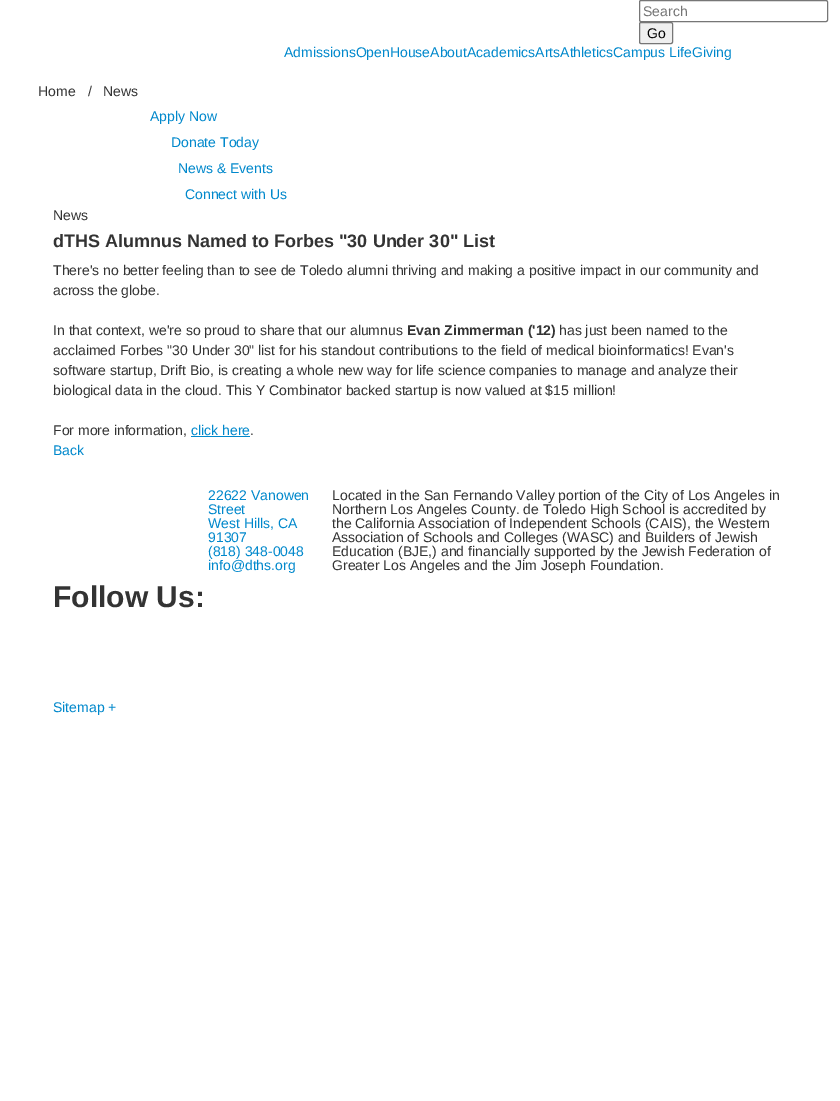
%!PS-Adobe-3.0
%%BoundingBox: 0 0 840 1101
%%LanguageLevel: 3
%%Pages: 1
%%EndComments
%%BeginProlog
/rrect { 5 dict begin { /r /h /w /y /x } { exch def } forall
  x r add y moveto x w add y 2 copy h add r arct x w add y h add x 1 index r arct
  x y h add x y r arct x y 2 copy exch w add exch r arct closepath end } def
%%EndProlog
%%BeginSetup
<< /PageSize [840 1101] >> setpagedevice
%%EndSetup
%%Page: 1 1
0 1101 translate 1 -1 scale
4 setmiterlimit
1 setgray
0 0 840 1101 rectfill
0.463 setgray
639.5 0.5 188 21 1.5 rrect stroke
0.937 setgray
639.5 22.5 33 21 1.5 rrect gsave fill grestore
0.463 setgray
stroke
0 0.533 0.8 setrgbcolor
191 436 59 1 rectfill
/LiberationSans-Regular [14 0 0 -14 0 0] selectfont
0.459 setgray
643 16 moveto (Search) show
0 setgray
647 38 moveto (Go) show
0 0.533 0.8 setrgbcolor
284 57 moveto (AdmissionsOpenHouseAboutAcademicsArtsAthleticsCampus LifeGiving) show
0.2 setgray
38 96 moveto (Home) show
88 96 moveto (/) show
103 96 moveto (News) show
0 0.533 0.8 setrgbcolor
150 121 moveto (Apply Now) show
171 147 moveto (Donate Today) show
178 173 moveto (News & Events) show
185 199 moveto (Connect with Us) show
0.2 setgray
53 220 moveto (News) show
/LiberationSans-Bold [18 0 0 -18 0 0] selectfont
53 247 moveto (dTHS Alumnus Named to Forbes "30 Under 30" List) show
/LiberationSans-Regular [14 0 0 -14 0 0] selectfont
53 275 moveto (There's no better feeling than to see de Toledo alumni thriving and making a positive impact in our community and) show
53 295 moveto (across the globe.) show
53 335 moveto (In that context, we're so proud to share that our alumnus) show
/LiberationSans-Bold [14 0 0 -14 0 0] selectfont
407 335 moveto (Evan Zimmerman \('12\)) show
/LiberationSans-Regular [14 0 0 -14 0 0] selectfont
559 335 moveto (has just been named to the) show
53 355 moveto (acclaimed Forbes "30 Under 30" list for his standout contributions to the field of medical bioinformatics! Evan's) show
53 375 moveto (software startup, Drift Bio, is creating a whole new way for life science companies to manage and analyze their) show
53 395 moveto (biological data in the cloud. This Y Combinator backed startup is now valued at $15 million!) show
53 435 moveto (For more information,) show
0 0.533 0.8 setrgbcolor
191 435 moveto (click here) show
0.2 setgray
250 435 moveto (.) show
0 0.533 0.8 setrgbcolor
53 455 moveto (Back) show
208 500 moveto (22622 Vanowen) show
208 514 moveto (Street) show
208 528 moveto (West Hills, CA) show
208 542 moveto (91307) show
208 556 moveto (\(818\) 348-0048) show
208 570 moveto (info@dths.org) show
0.2 setgray
332 500 moveto (Located in the San Fernando Valley portion of the City of Los Angeles in) show
332 514 moveto (Northern Los Angeles County. de Toledo High School is accredited by) show
332 528 moveto (the California Association of Independent Schools \(CAIS\), the Western) show
332 542 moveto (Association of Schools and Colleges \(WASC\) and Builders of Jewish) show
332 556 moveto (Education \(BJE,\) and financially supported by the Jewish Federation of) show
332 570 moveto (Greater Los Angeles and the Jim Joseph Foundation.) show
/LiberationSans-Bold [30 0 0 -30 0 0] selectfont
53 607 moveto (Follow Us:) show
/LiberationSans-Regular [14 0 0 -14 0 0] selectfont
0 0.533 0.8 setrgbcolor
53 712 moveto (Sitemap +) show
showpage
%%EOF
